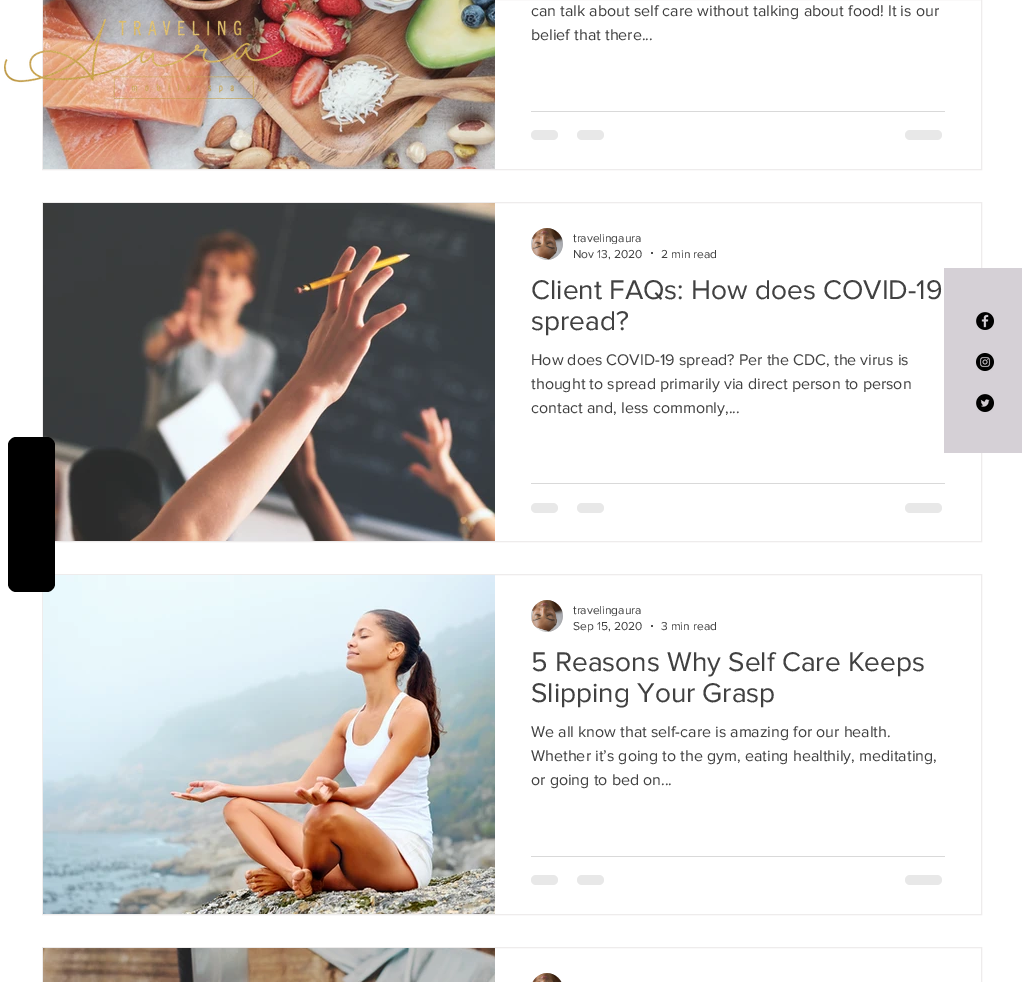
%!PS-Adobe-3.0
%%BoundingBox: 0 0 1024 982
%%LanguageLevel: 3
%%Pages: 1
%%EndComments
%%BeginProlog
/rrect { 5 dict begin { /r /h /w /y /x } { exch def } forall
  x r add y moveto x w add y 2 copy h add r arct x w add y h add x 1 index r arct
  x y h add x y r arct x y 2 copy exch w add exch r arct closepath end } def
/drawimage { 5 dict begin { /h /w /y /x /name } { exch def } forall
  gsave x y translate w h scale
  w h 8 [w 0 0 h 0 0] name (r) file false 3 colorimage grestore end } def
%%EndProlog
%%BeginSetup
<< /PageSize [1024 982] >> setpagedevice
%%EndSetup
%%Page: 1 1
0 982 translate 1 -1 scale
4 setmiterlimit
1 setgray
0 0 1024 982 rectfill
0.933 0.925 0.925 setrgbcolor
42.5 202.5 939 339 rectstroke
(images/3.raw) 43 203 452 338 drawimage
42.5 574.5 939 340 rectstroke
(images/5.raw) 43 575 452 339 drawimage
0 setgray
newpath 8 584 moveto 8 445 lineto 8 441 12 437 16 437 curveto 47 437 lineto 51 437 55 441 55 445 curveto 55 584 lineto 55 588 51 592 47 592 curveto 16 592 lineto 12 592 8 588 8 584 curveto closepath fill
0.933 0.925 0.925 setrgbcolor
42.5 -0.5 939 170 rectstroke
(images/2.raw) 43 0 452 169 drawimage
(images/1.raw) 4 19 278 80 drawimage
0.851 setgray
531 111 414 1 rectfill
0.91 setgray
531 130 27 10 5 rrect fill
577 130 27 10 5 rrect fill
905 130 37 10 5 rrect fill
(images/4.raw) 531 228 32 32 drawimage
0.255 setgray
newpath 652 253 1 0 360 arc closepath fill
0.851 setgray
531 483 414 1 rectfill
0.91 setgray
531 503 27 10 5 rrect fill
577 503 27 10 5 rrect fill
905 503 37 10 5 rrect fill
(images/4.raw) 531 600 32 32 drawimage
0.255 setgray
newpath 652 626 1 0 360 arc closepath fill
0.851 setgray
531 856 414 1 rectfill
0.91 setgray
531 875 27 10 5 rrect fill
577 875 27 10 5 rrect fill
905 875 37 10 5 rrect fill
0.933 0.925 0.925 setrgbcolor
42.5 947.5 939 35 rectstroke
(images/6.raw) 43 948 452 34 drawimage
(images/7.raw) 532 973 30 9 drawimage
0.835 0.816 0.839 setrgbcolor
944 268 78 185 rectfill
(images/8.raw) 976 312 18 18 drawimage
(images/9.raw) 976 353 18 18 drawimage
(images/10.raw) 976 394 18 18 drawimage
/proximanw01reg-Regular [16 0 0 -16 0 0] selectfont
0.255 setgray
531 16 moveto (can talk about self care without talking about food! It is our) show
531 40 moveto (belief that there...) show
gsave
573 231 69 13 rectclip
/proximanw01reg-Regular [12 0 0 -12 0 0] selectfont
573 242 moveto (travelingaura) show
grestore
/proximanw01reg-Regular [12 0 0 -12 0 0] selectfont
573 258 moveto (Nov 13, 2020) show
661 258 moveto (2 min read) show
/proximanw01reg-Regular [28 0 0 -28 0 0] selectfont
531 299 moveto (Client FAQs: How does COVID-19) show
531 330 moveto (spread?) show
/proximanw01reg-Regular [16 0 0 -16 0 0] selectfont
531 365 moveto (How does COVID-19 spread? Per the CDC, the virus is) show
531 389 moveto (thought to spread primarily via direct person to person) show
531 413 moveto (contact and, less commonly,...) show
gsave
573 603 69 13 rectclip
/proximanw01reg-Regular [12 0 0 -12 0 0] selectfont
573 614 moveto (travelingaura) show
grestore
/proximanw01reg-Regular [12 0 0 -12 0 0] selectfont
573 630 moveto (Sep 15, 2020) show
661 630 moveto (3 min read) show
/proximanw01reg-Regular [28 0 0 -28 0 0] selectfont
531 671 moveto (5 Reasons Why Self Care Keeps) show
531 702 moveto (Slipping Your Grasp) show
/proximanw01reg-Regular [16 0 0 -16 0 0] selectfont
531 737 moveto (We all know that self-care is amazing for our health.) show
531 761 moveto (Whether it’s going to the gym, eating healthily, meditating,) show
531 785 moveto (or going to bed on...) show
showpage
%%EOF
